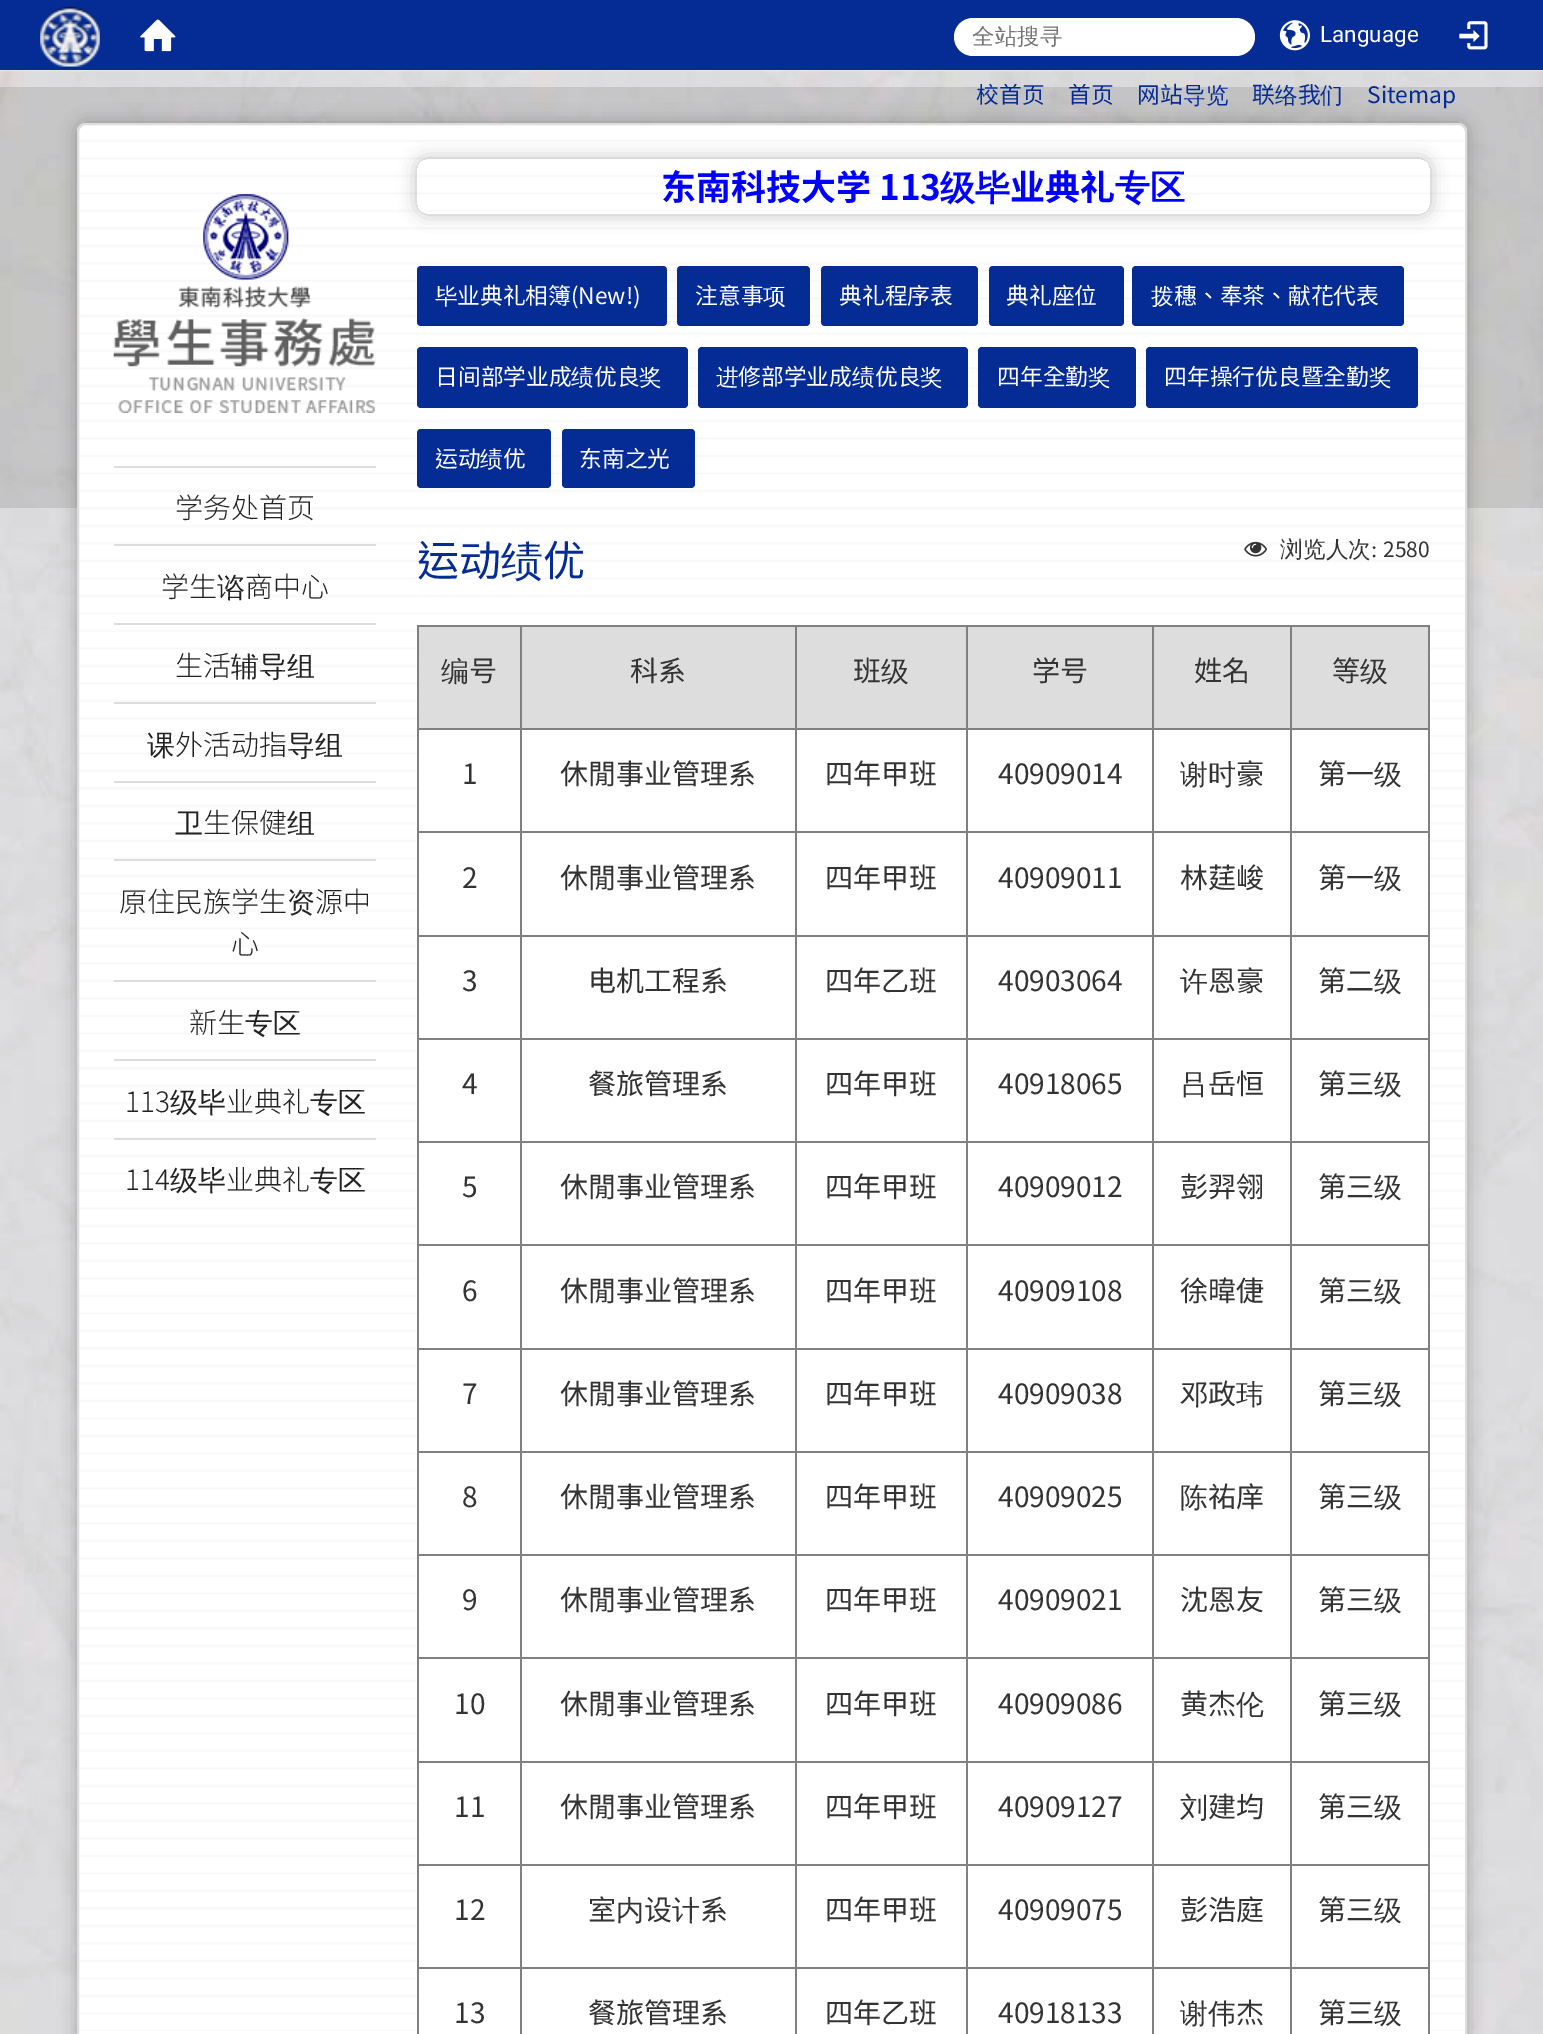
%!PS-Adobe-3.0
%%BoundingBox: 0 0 1543 2034
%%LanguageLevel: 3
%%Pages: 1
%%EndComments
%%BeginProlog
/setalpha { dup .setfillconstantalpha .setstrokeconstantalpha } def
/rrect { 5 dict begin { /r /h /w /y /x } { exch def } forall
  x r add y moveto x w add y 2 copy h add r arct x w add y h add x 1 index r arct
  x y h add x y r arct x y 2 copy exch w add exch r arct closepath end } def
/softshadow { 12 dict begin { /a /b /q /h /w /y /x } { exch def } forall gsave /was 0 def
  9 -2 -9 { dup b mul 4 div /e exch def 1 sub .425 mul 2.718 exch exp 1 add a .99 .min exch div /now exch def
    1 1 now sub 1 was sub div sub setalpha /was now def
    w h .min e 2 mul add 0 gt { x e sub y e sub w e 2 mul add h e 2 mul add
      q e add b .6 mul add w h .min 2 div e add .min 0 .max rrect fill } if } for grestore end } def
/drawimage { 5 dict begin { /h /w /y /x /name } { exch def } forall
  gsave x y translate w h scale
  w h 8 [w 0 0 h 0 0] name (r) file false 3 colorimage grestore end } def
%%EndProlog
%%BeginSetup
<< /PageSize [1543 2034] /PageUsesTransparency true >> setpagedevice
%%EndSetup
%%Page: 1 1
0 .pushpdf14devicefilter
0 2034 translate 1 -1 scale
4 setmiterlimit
1 setgray
0 0 1543 2034 rectfill
(images/1.raw) 0 70 1543 1964 drawimage
0.1 setalpha
0 setgray
0 87 1543 421 rectfill
1 setalpha
0.02 0.173 0.584 setrgbcolor
0 0 1543 70 rectfill
(images/2.raw) 40 6 60 61 drawimage
(images/3.raw) 140 19 36 33 drawimage
1 setgray
954 18 301 38 19 rrect fill
(images/4.raw) 1279 20 31 31 drawimage
(images/5.raw) 1459 21 29 29 drawimage
0 setgray
77 123 1390 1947 9 9 0.25 softshadow
1 setgray
77 123 1390 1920 9 rrect fill
(images/6.raw) 79 123 1386 1908 drawimage
0.867 setgray
2 setlinewidth
78 124 1388 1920 8 rrect stroke
(images/7.raw) 113 194 263 219 drawimage
114 466 262 2 rectfill
114 544 262 2 rectfill
114 623 262 2 rectfill
114 702 262 2 rectfill
114 781 262 2 rectfill
114 859 262 2 rectfill
114 980 262 2 rectfill
114 1059 262 2 rectfill
114 1138 262 2 rectfill
gsave
newpath 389 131 moveto 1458 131 lineto 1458 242 lineto 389 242 lineto closepath 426 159 moveto 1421 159 lineto 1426 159 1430 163 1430 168 curveto 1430 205 lineto 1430 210 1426 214 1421 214 curveto 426 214 lineto 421 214 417 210 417 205 curveto 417 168 lineto 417 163 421 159 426 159 curveto closepath eoclip newpath
0 setgray
417 159 1013 55 9 9 0.25 softshadow
grestore
0.02 0.173 0.584 setrgbcolor
417 266 250 60 4 rrect fill
677 266 133 60 4 rrect fill
821 266 157 60 4 rrect fill
989 266 135 60 4 rrect fill
1132 266 272 60 4 rrect fill
417 347 271 61 4 rrect fill
698 347 270 61 4 rrect fill
978 347 158 61 4 rrect fill
1146 347 272 61 4 rrect fill
417 429 134 59 4 rrect fill
562 429 133 59 4 rrect fill
(images/8.raw) 1244 541 23 16 drawimage
1 setgray
419 735 1009 1296 rectfill
0.502 setgray
417 625 1013 2 rectfill
1428 625 2 1409 rectfill
417 625 2 1409 rectfill
0.867 setgray
419 627 1009 101 rectfill
0.502 setgray
1290 728 140 2 rectfill
1290 831 140 2 rectfill
1290 935 140 2 rectfill
1290 1038 140 2 rectfill
1290 1141 140 2 rectfill
1290 1244 140 2 rectfill
1290 1348 140 2 rectfill
1290 1451 140 2 rectfill
1290 1554 140 2 rectfill
1290 1657 140 2 rectfill
1290 1761 140 2 rectfill
1290 1864 140 2 rectfill
1290 1967 140 2 rectfill
1290 1967 2 67 rectfill
1152 1967 140 2 rectfill
1290 1864 2 105 rectfill
1152 1864 140 2 rectfill
1290 1761 2 105 rectfill
1152 1761 140 2 rectfill
1290 1657 2 105 rectfill
1152 1657 140 2 rectfill
1290 1554 2 105 rectfill
1152 1554 140 2 rectfill
1290 1451 2 105 rectfill
1152 1451 140 2 rectfill
1290 1348 2 105 rectfill
1152 1348 140 2 rectfill
1290 1244 2 105 rectfill
1152 1244 140 2 rectfill
1290 1141 2 105 rectfill
1152 1141 140 2 rectfill
1290 1038 2 105 rectfill
1152 1038 140 2 rectfill
1290 935 2 105 rectfill
1152 935 140 2 rectfill
1290 831 2 105 rectfill
1152 831 140 2 rectfill
1290 728 2 105 rectfill
1152 728 140 2 rectfill
1152 1967 2 67 rectfill
966 1967 187 2 rectfill
1152 1864 2 105 rectfill
966 1864 187 2 rectfill
1152 1761 2 105 rectfill
966 1761 187 2 rectfill
1152 1657 2 105 rectfill
966 1657 187 2 rectfill
1152 1554 2 105 rectfill
966 1554 187 2 rectfill
1152 1451 2 105 rectfill
966 1451 187 2 rectfill
1152 1348 2 105 rectfill
966 1348 187 2 rectfill
1152 1244 2 105 rectfill
966 1244 187 2 rectfill
1152 1141 2 105 rectfill
966 1141 187 2 rectfill
1152 1038 2 105 rectfill
966 1038 187 2 rectfill
1152 935 2 105 rectfill
966 935 187 2 rectfill
1152 831 2 105 rectfill
966 831 187 2 rectfill
1152 728 2 105 rectfill
966 728 187 2 rectfill
966 1967 2 67 rectfill
795 1967 173 2 rectfill
966 1864 2 105 rectfill
795 1864 173 2 rectfill
966 1761 2 105 rectfill
795 1761 173 2 rectfill
966 1657 2 105 rectfill
795 1657 173 2 rectfill
966 1554 2 105 rectfill
795 1554 173 2 rectfill
966 1451 2 105 rectfill
795 1451 173 2 rectfill
966 1348 2 105 rectfill
795 1348 173 2 rectfill
966 1244 2 105 rectfill
795 1244 173 2 rectfill
966 1141 2 105 rectfill
795 1141 173 2 rectfill
966 1038 2 105 rectfill
795 1038 173 2 rectfill
966 935 2 105 rectfill
795 935 173 2 rectfill
966 831 2 105 rectfill
795 831 173 2 rectfill
966 728 2 105 rectfill
795 728 173 2 rectfill
795 1967 2 67 rectfill
520 1967 276 2 rectfill
795 1864 2 105 rectfill
520 1864 276 2 rectfill
795 1761 2 105 rectfill
520 1761 276 2 rectfill
795 1657 2 105 rectfill
520 1657 276 2 rectfill
795 1554 2 105 rectfill
520 1554 276 2 rectfill
795 1451 2 105 rectfill
520 1451 276 2 rectfill
795 1348 2 105 rectfill
520 1348 276 2 rectfill
795 1244 2 105 rectfill
520 1244 276 2 rectfill
795 1141 2 105 rectfill
520 1141 276 2 rectfill
795 1038 2 105 rectfill
520 1038 276 2 rectfill
795 935 2 105 rectfill
520 935 276 2 rectfill
795 831 2 105 rectfill
520 831 276 2 rectfill
795 728 2 105 rectfill
520 728 276 2 rectfill
520 1967 2 67 rectfill
417 1967 105 2 rectfill
520 1864 2 105 rectfill
417 1864 105 2 rectfill
520 1761 2 105 rectfill
417 1761 105 2 rectfill
520 1657 2 105 rectfill
417 1657 105 2 rectfill
520 1554 2 105 rectfill
417 1554 105 2 rectfill
520 1451 2 105 rectfill
417 1451 105 2 rectfill
520 1348 2 105 rectfill
417 1348 105 2 rectfill
520 1244 2 105 rectfill
417 1244 105 2 rectfill
520 1141 2 105 rectfill
417 1141 105 2 rectfill
520 1038 2 105 rectfill
417 1038 105 2 rectfill
520 935 2 105 rectfill
417 935 105 2 rectfill
520 831 2 105 rectfill
417 831 105 2 rectfill
520 728 2 105 rectfill
417 728 105 2 rectfill
520 625 2 105 rectfill
795 625 2 105 rectfill
966 625 2 105 rectfill
1152 625 2 105 rectfill
1290 625 2 105 rectfill
/WenQuanYiZenHei-Medium [22.5 0 0 -22.5 0 0] selectfont
0.459 setgray
972 44 moveto (全站搜寻) show
/Roboto-Regular [22.5 0 0 -22.5 0 0] selectfont
1 setgray
1320 42 moveto (Language) show
/NotoSansTC-Regular [22.75 0 0 -22.75 0 0] selectfont
0.02 0.173 0.584 setrgbcolor
976 103 moveto (校首页) show
1068 103 moveto (首页) show
1137 103 moveto (网站) show
/WenQuanYiZenHei-Medium [22.75 0 0 -22.75 0 0] selectfont
1183 103 moveto (导览) show
/NotoSansTC-Regular [22.75 0 0 -22.75 0 0] selectfont
1252 103 moveto (联) show
/WenQuanYiZenHei-Medium [22.75 0 0 -22.75 0 0] selectfont
1275 103 moveto (络) show
/NotoSansTC-Regular [22.75 0 0 -22.75 0 0] selectfont
1298 103 moveto (我) show
/WenQuanYiZenHei-Medium [22.75 0 0 -22.75 0 0] selectfont
1320 103 moveto (们) show
/NotoSansTC-Regular [22.75 0 0 -22.75 0 0] selectfont
1367 103 moveto (Sitemap) show
/NotoSansTC-Light [28 0 0 -28 0 0] selectfont
0.133 setgray
175 518 moveto (学务处首页) show
161 597 moveto (学生) show
/WenQuanYiZenHei-Medium [28 0 0 -28 0 0] selectfont
217 597 moveto (谘) show
/NotoSansTC-Light [28 0 0 -28 0 0] selectfont
245 597 moveto (商中心) show
175 676 moveto (生活) show
/WenQuanYiZenHei-Medium [28 0 0 -28 0 0] selectfont
231 676 moveto (辅导组) show
147 755 moveto (课) show
/NotoSansTC-Light [28 0 0 -28 0 0] selectfont
175 755 moveto (外活动指) show
/WenQuanYiZenHei-Medium [28 0 0 -28 0 0] selectfont
287 755 moveto (导组) show
175 833 moveto (卫) show
/NotoSansTC-Light [28 0 0 -28 0 0] selectfont
203 833 moveto (生保健) show
/WenQuanYiZenHei-Medium [28 0 0 -28 0 0] selectfont
287 833 moveto (组) show
/NotoSansTC-Light [28 0 0 -28 0 0] selectfont
119 912 moveto (原住民族学生) show
/WenQuanYiZenHei-Medium [28 0 0 -28 0 0] selectfont
287 912 moveto (资) show
/NotoSansTC-Light [28 0 0 -28 0 0] selectfont
315 912 moveto (源中) show
231 954 moveto (心) show
189 1033 moveto (新生) show
/WenQuanYiZenHei-Medium [28 0 0 -28 0 0] selectfont
245 1033 moveto (专区) show
/NotoSansTC-Light [28 0 0 -28 0 0] selectfont
125 1112 moveto (113) show
/WenQuanYiZenHei-Medium [28 0 0 -28 0 0] selectfont
170 1112 moveto (级毕) show
/NotoSansTC-Light [28 0 0 -28 0 0] selectfont
226 1112 moveto (业典礼) show
/WenQuanYiZenHei-Medium [28 0 0 -28 0 0] selectfont
310 1112 moveto (专区) show
/NotoSansTC-Light [28 0 0 -28 0 0] selectfont
125 1190 moveto (114) show
/WenQuanYiZenHei-Medium [28 0 0 -28 0 0] selectfont
170 1190 moveto (级毕) show
/NotoSansTC-Light [28 0 0 -28 0 0] selectfont
226 1190 moveto (业典礼) show
/WenQuanYiZenHei-Medium [28 0 0 -28 0 0] selectfont
310 1190 moveto (专区) show
/NotoSansTC-Bold [35 0 0 -35 0 0] selectfont
0 0 1 setrgbcolor
661 200 moveto (东南科技大学 113) show
/WenQuanYiZenHei-Bold [35 0 0 -35 0 0] selectfont
940 200 moveto (级毕) show
/NotoSansTC-Bold [35 0 0 -35 0 0] selectfont
1010 200 moveto (业典礼) show
/WenQuanYiZenHei-Bold [35 0 0 -35 0 0] selectfont
1115 200 moveto (专区) show
/WenQuanYiZenHei-Medium [22.75 0 0 -22.75 0 0] selectfont
1 setgray
435 304 moveto (毕) show
/NotoSansTC-Regular [22.75 0 0 -22.75 0 0] selectfont
457 304 moveto (业典礼相簿\(New!\)) show
695 304 moveto (注意事) show
/WenQuanYiZenHei-Medium [22.75 0 0 -22.75 0 0] selectfont
763 304 moveto (项) show
/NotoSansTC-Regular [22.75 0 0 -22.75 0 0] selectfont
839 304 moveto (典礼程序表) show
1006 304 moveto (典礼座位) show
/WenQuanYiZenHei-Medium [22.75 0 0 -22.75 0 0] selectfont
1151 304 moveto (拨) show
/NotoSansTC-Regular [22.75 0 0 -22.75 0 0] selectfont
1174 304 moveto (穗、奉茶、献花代表) show
435 385 moveto (日间部学业成) show
/WenQuanYiZenHei-Medium [22.75 0 0 -22.75 0 0] selectfont
571 385 moveto (绩) show
/NotoSansTC-Regular [22.75 0 0 -22.75 0 0] selectfont
594 385 moveto (优良) show
/WenQuanYiZenHei-Medium [22.75 0 0 -22.75 0 0] selectfont
639 385 moveto (奖) show
716 385 moveto (进) show
/NotoSansTC-Regular [22.75 0 0 -22.75 0 0] selectfont
738 385 moveto (修部学业成) show
/WenQuanYiZenHei-Medium [22.75 0 0 -22.75 0 0] selectfont
852 385 moveto (绩) show
/NotoSansTC-Regular [22.75 0 0 -22.75 0 0] selectfont
875 385 moveto (优良) show
/WenQuanYiZenHei-Medium [22.75 0 0 -22.75 0 0] selectfont
920 385 moveto (奖) show
/NotoSansTC-Regular [22.75 0 0 -22.75 0 0] selectfont
997 385 moveto (四年全勤) show
/WenQuanYiZenHei-Medium [22.75 0 0 -22.75 0 0] selectfont
1088 385 moveto (奖) show
/NotoSansTC-Regular [22.75 0 0 -22.75 0 0] selectfont
1164 385 moveto (四年操行优良暨全勤) show
/WenQuanYiZenHei-Medium [22.75 0 0 -22.75 0 0] selectfont
1369 385 moveto (奖) show
/NotoSansTC-Regular [22.75 0 0 -22.75 0 0] selectfont
435 467 moveto (运动) show
/WenQuanYiZenHei-Medium [22.75 0 0 -22.75 0 0] selectfont
480 467 moveto (绩) show
/NotoSansTC-Regular [22.75 0 0 -22.75 0 0] selectfont
503 467 moveto (优) show
579 467 moveto (东南之光) show
/NotoSansTC-Regular [42 0 0 -42 0 0] selectfont
0.02 0.173 0.584 setrgbcolor
417 576 moveto (运动) show
/WenQuanYiZenHei-Medium [42 0 0 -42 0 0] selectfont
501 576 moveto (绩) show
/NotoSansTC-Regular [42 0 0 -42 0 0] selectfont
543 576 moveto (优) show
/WenQuanYiZenHei-Medium [22.75 0 0 -22.75 0 0] selectfont
0.2 setgray
1280 557 moveto (浏览人次) show
/LiberationSerif-Regular [22.75 0 0 -22.75 0 0] selectfont
1371 557 moveto (:) show
/NotoSansTC-Regular [21 0 0 -21 0 0] selectfont
1383 557 moveto (2580) show
/WenQuanYiZenHei-Medium [28 0 0 -28 0 0] selectfont
441 681 moveto (编) show
/NotoSansTC-Regular [28 0 0 -28 0 0] selectfont
469 681 moveto (号) show
630 681 moveto (科系) show
853 681 moveto (班) show
/WenQuanYiZenHei-Medium [28 0 0 -28 0 0] selectfont
881 681 moveto (级) show
/NotoSansTC-Regular [28 0 0 -28 0 0] selectfont
1032 681 moveto (学号) show
1194 681 moveto (姓名) show
1332 681 moveto (等) show
/WenQuanYiZenHei-Medium [28 0 0 -28 0 0] selectfont
1360 681 moveto (级) show
/NotoSansTC-Regular [28 0 0 -28 0 0] selectfont
462 784 moveto (1) show
560 784 moveto (休閒事业管理系) show
825 784 moveto (四年甲班) show
998 784 moveto (40909014) show
/WenQuanYiZenHei-Medium [28 0 0 -28 0 0] selectfont
1180 784 moveto (谢时) show
/NotoSansTC-Regular [28 0 0 -28 0 0] selectfont
1236 784 moveto (豪) show
1318 784 moveto (第一) show
/WenQuanYiZenHei-Medium [28 0 0 -28 0 0] selectfont
1374 784 moveto (级) show
/NotoSansTC-Regular [28 0 0 -28 0 0] selectfont
462 888 moveto (2) show
560 888 moveto (休閒事业管理系) show
825 888 moveto (四年甲班) show
998 888 moveto (40909011) show
1180 888 moveto (林莛峻) show
1318 888 moveto (第一) show
/WenQuanYiZenHei-Medium [28 0 0 -28 0 0] selectfont
1374 888 moveto (级) show
/NotoSansTC-Regular [28 0 0 -28 0 0] selectfont
462 991 moveto (3) show
588 991 moveto (电机工程系) show
825 991 moveto (四年乙班) show
998 991 moveto (40903064) show
/WenQuanYiZenHei-Medium [28 0 0 -28 0 0] selectfont
1180 991 moveto (许) show
/NotoSansTC-Regular [28 0 0 -28 0 0] selectfont
1208 991 moveto (恩豪) show
1318 991 moveto (第二) show
/WenQuanYiZenHei-Medium [28 0 0 -28 0 0] selectfont
1374 991 moveto (级) show
/NotoSansTC-Regular [28 0 0 -28 0 0] selectfont
462 1094 moveto (4) show
588 1094 moveto (餐旅管理系) show
825 1094 moveto (四年甲班) show
998 1094 moveto (40918065) show
/WenQuanYiZenHei-Medium [28 0 0 -28 0 0] selectfont
1180 1094 moveto (吕) show
/NotoSansTC-Regular [28 0 0 -28 0 0] selectfont
1208 1094 moveto (岳恒) show
1318 1094 moveto (第三) show
/WenQuanYiZenHei-Medium [28 0 0 -28 0 0] selectfont
1374 1094 moveto (级) show
/NotoSansTC-Regular [28 0 0 -28 0 0] selectfont
462 1197 moveto (5) show
560 1197 moveto (休閒事业管理系) show
825 1197 moveto (四年甲班) show
998 1197 moveto (40909012) show
1180 1197 moveto (彭羿翎) show
1318 1197 moveto (第三) show
/WenQuanYiZenHei-Medium [28 0 0 -28 0 0] selectfont
1374 1197 moveto (级) show
/NotoSansTC-Regular [28 0 0 -28 0 0] selectfont
462 1301 moveto (6) show
560 1301 moveto (休閒事业管理系) show
825 1301 moveto (四年甲班) show
998 1301 moveto (40909108) show
1180 1301 moveto (徐暐倢) show
1318 1301 moveto (第三) show
/WenQuanYiZenHei-Medium [28 0 0 -28 0 0] selectfont
1374 1301 moveto (级) show
/NotoSansTC-Regular [28 0 0 -28 0 0] selectfont
462 1404 moveto (7) show
560 1404 moveto (休閒事业管理系) show
825 1404 moveto (四年甲班) show
998 1404 moveto (40909038) show
/WenQuanYiZenHei-Medium [28 0 0 -28 0 0] selectfont
1180 1404 moveto (邓) show
/NotoSansTC-Regular [28 0 0 -28 0 0] selectfont
1208 1404 moveto (政) show
/WenQuanYiZenHei-Medium [28 0 0 -28 0 0] selectfont
1236 1404 moveto (玮) show
/NotoSansTC-Regular [28 0 0 -28 0 0] selectfont
1318 1404 moveto (第三) show
/WenQuanYiZenHei-Medium [28 0 0 -28 0 0] selectfont
1374 1404 moveto (级) show
/NotoSansTC-Regular [28 0 0 -28 0 0] selectfont
462 1507 moveto (8) show
560 1507 moveto (休閒事业管理系) show
825 1507 moveto (四年甲班) show
998 1507 moveto (40909025) show
/WenQuanYiZenHei-Medium [28 0 0 -28 0 0] selectfont
1180 1507 moveto (陈) show
/NotoSansTC-Regular [28 0 0 -28 0 0] selectfont
1208 1507 moveto (祐庠) show
1318 1507 moveto (第三) show
/WenQuanYiZenHei-Medium [28 0 0 -28 0 0] selectfont
1374 1507 moveto (级) show
/NotoSansTC-Regular [28 0 0 -28 0 0] selectfont
462 1610 moveto (9) show
560 1610 moveto (休閒事业管理系) show
825 1610 moveto (四年甲班) show
998 1610 moveto (40909021) show
1180 1610 moveto (沈恩友) show
1318 1610 moveto (第三) show
/WenQuanYiZenHei-Medium [28 0 0 -28 0 0] selectfont
1374 1610 moveto (级) show
/NotoSansTC-Regular [28 0 0 -28 0 0] selectfont
454 1714 moveto (10) show
560 1714 moveto (休閒事业管理系) show
825 1714 moveto (四年甲班) show
998 1714 moveto (40909086) show
1180 1714 moveto (黄杰) show
/WenQuanYiZenHei-Medium [28 0 0 -28 0 0] selectfont
1236 1714 moveto (伦) show
/NotoSansTC-Regular [28 0 0 -28 0 0] selectfont
1318 1714 moveto (第三) show
/WenQuanYiZenHei-Medium [28 0 0 -28 0 0] selectfont
1374 1714 moveto (级) show
/NotoSansTC-Regular [28 0 0 -28 0 0] selectfont
454 1817 moveto (11) show
560 1817 moveto (休閒事业管理系) show
825 1817 moveto (四年甲班) show
998 1817 moveto (40909127) show
/WenQuanYiZenHei-Medium [28 0 0 -28 0 0] selectfont
1180 1817 moveto (刘) show
/NotoSansTC-Regular [28 0 0 -28 0 0] selectfont
1208 1817 moveto (建均) show
1318 1817 moveto (第三) show
/WenQuanYiZenHei-Medium [28 0 0 -28 0 0] selectfont
1374 1817 moveto (级) show
/NotoSansTC-Regular [28 0 0 -28 0 0] selectfont
454 1920 moveto (12) show
588 1920 moveto (室) show
/WenQuanYiZenHei-Medium [28 0 0 -28 0 0] selectfont
616 1920 moveto (内) show
/NotoSansTC-Regular [28 0 0 -28 0 0] selectfont
644 1920 moveto (设) show
/WenQuanYiZenHei-Medium [28 0 0 -28 0 0] selectfont
672 1920 moveto (计) show
/NotoSansTC-Regular [28 0 0 -28 0 0] selectfont
700 1920 moveto (系) show
825 1920 moveto (四年甲班) show
998 1920 moveto (40909075) show
1180 1920 moveto (彭浩庭) show
1318 1920 moveto (第三) show
/WenQuanYiZenHei-Medium [28 0 0 -28 0 0] selectfont
1374 1920 moveto (级) show
/NotoSansTC-Regular [28 0 0 -28 0 0] selectfont
454 2023 moveto (13) show
588 2023 moveto (餐旅管理系) show
825 2023 moveto (四年乙班) show
998 2023 moveto (40918133) show
/WenQuanYiZenHei-Medium [28 0 0 -28 0 0] selectfont
1180 2023 moveto (谢伟) show
/NotoSansTC-Regular [28 0 0 -28 0 0] selectfont
1236 2023 moveto (杰) show
1318 2023 moveto (第三) show
/WenQuanYiZenHei-Medium [28 0 0 -28 0 0] selectfont
1374 2023 moveto (级) show
.poppdf14devicefilter showpage
%%EOF
